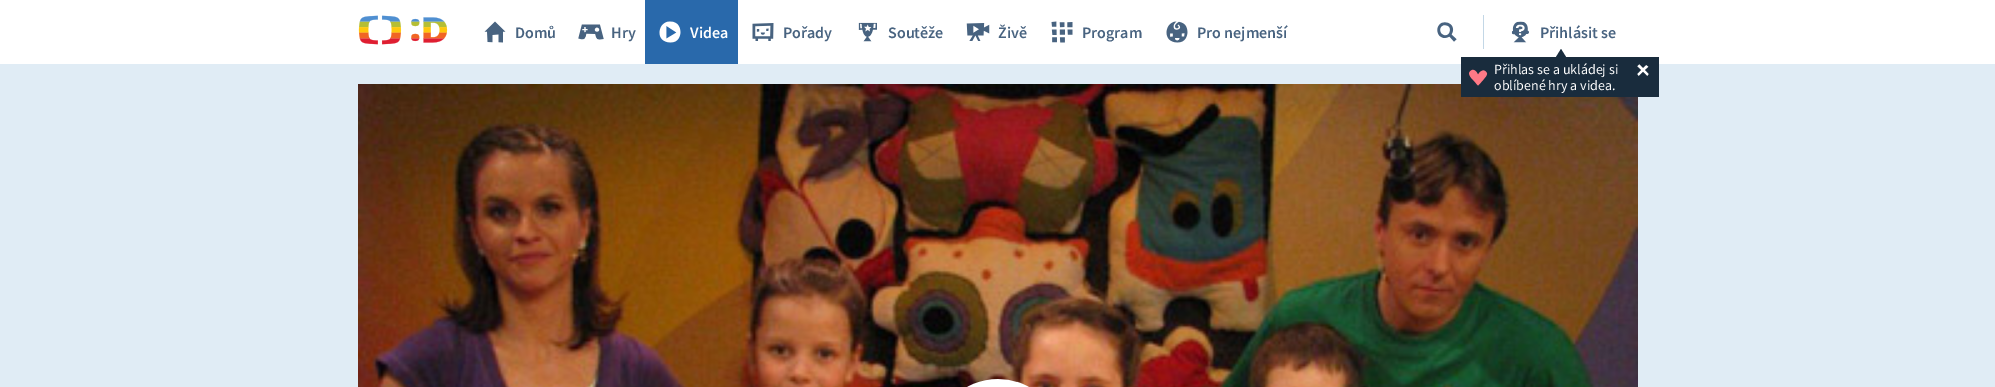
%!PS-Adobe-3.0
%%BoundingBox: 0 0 1995 387
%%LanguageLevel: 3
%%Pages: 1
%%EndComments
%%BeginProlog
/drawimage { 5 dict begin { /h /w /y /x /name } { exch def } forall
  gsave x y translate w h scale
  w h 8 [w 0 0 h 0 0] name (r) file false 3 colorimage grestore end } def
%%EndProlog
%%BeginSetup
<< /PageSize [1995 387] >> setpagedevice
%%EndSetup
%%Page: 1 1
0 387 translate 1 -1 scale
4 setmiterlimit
0.878 0.925 0.961 setrgbcolor
0 0 1995 387 rectfill
1 setgray
0 0 1995 64 rectfill
(images/1.raw) 358 15 90 30 drawimage
(images/2.raw) 484 21 22 22 drawimage
(images/3.raw) 578 24 26 16 drawimage
0.161 0.412 0.671 setrgbcolor
645 0 93 64 rectfill
(images/4.raw) 659 21 22 22 drawimage
(images/5.raw) 752 23 22 18 drawimage
(images/6.raw) 858 22 19 20 drawimage
(images/7.raw) 966 23 24 18 drawimage
(images/8.raw) 1051 21 22 22 drawimage
(images/9.raw) 1166 21 22 22 drawimage
(images/10.raw) 1437 22 20 20 drawimage
0.765 0.843 0.902 setrgbcolor
1483 15 1 34 rectfill
(images/11.raw) 1511 21 18 22 drawimage
(images/14.raw) 358 84 1280 303 drawimage
0.098 0.173 0.239 setrgbcolor
1461 57 198 40 rectfill
newpath 1566 57 moveto 1556 57 lineto 1561 49 lineto closepath fill
(images/12.raw) 1469 69 19 17 drawimage
(images/13.raw) 1637 64 12 12 drawimage
(images/15.raw) 967 379 62 8 drawimage
/SourceSansPro-SemiBold [16 0 0 -16 0 0] selectfont
0.282 0.388 0.502 setrgbcolor
515 38 moveto (Domů) show
611 38 moveto (Hry) show
1 setgray
690 38 moveto (Videa) show
0.282 0.388 0.502 setrgbcolor
783 38 moveto (Pořady) show
888 38 moveto (Soutěže) show
998 38 moveto (Živě) show
1082 38 moveto (Program) show
1197 38 moveto (Pro nejmenší) show
1540 38 moveto (Přihlásit se) show
/SourceSansPro-Regular [14 0 0 -14 0 0] selectfont
1 setgray
1494 74 moveto (Přihlas se a ukládej si) show
1494 90 moveto (oblíbené hry a videa.) show
showpage
%%EOF
